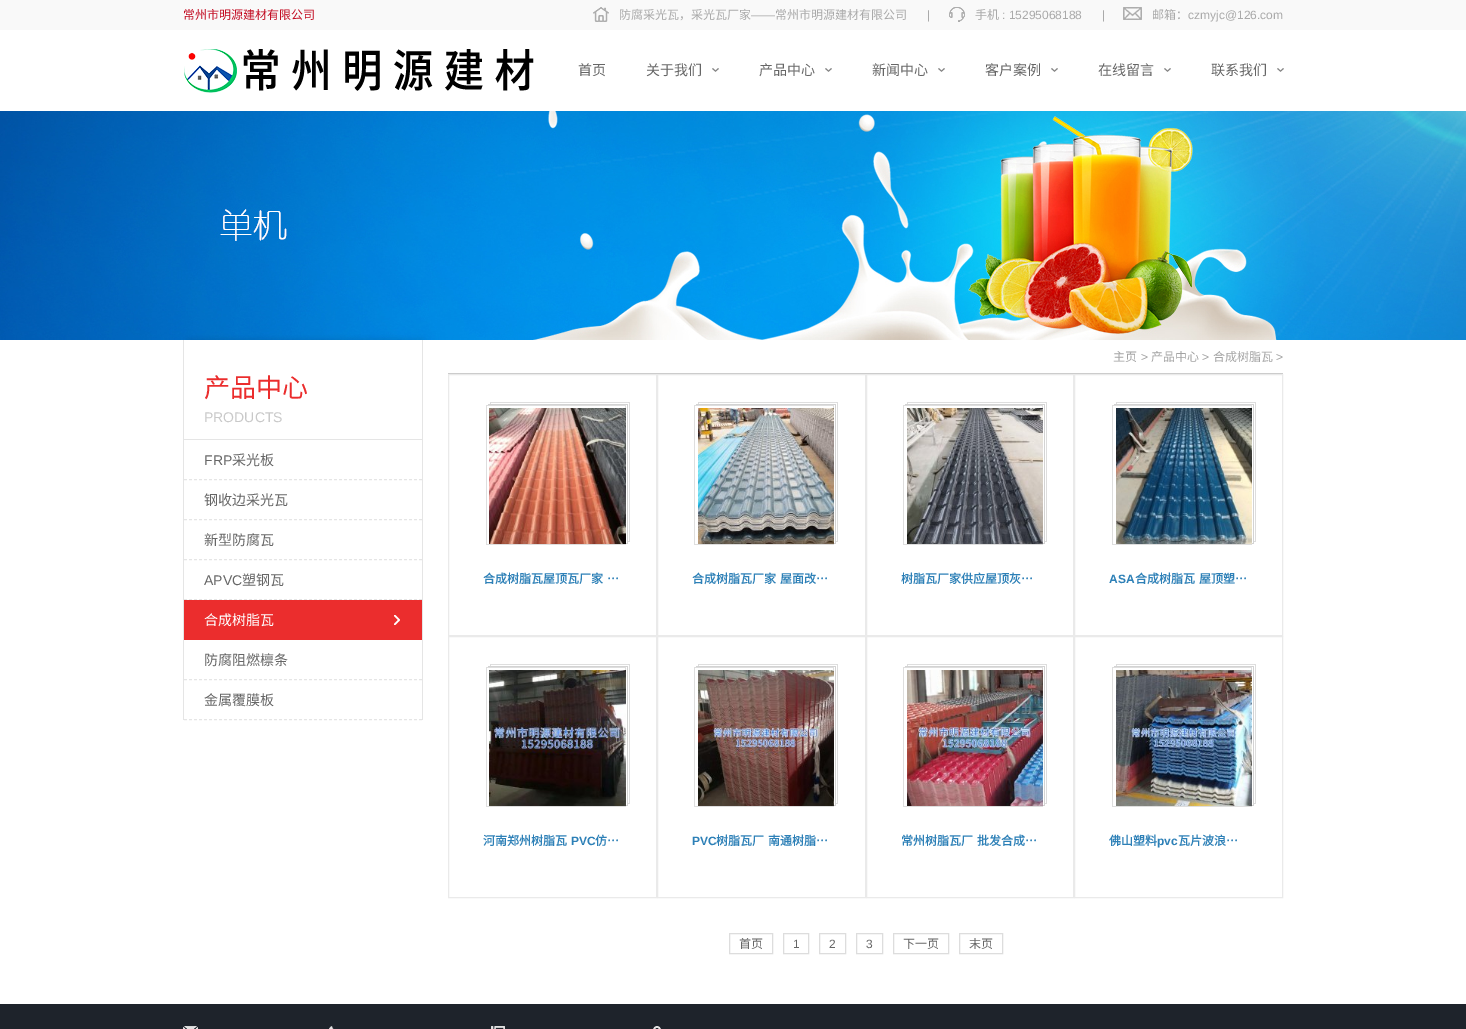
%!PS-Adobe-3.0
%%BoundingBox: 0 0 1466 1029
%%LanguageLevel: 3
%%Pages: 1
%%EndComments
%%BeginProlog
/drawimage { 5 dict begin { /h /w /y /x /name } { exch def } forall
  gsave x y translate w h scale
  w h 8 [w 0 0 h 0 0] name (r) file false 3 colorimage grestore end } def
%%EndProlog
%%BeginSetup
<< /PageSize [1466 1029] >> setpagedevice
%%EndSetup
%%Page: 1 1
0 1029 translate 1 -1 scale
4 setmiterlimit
1 setgray
0 0 1466 1029 rectfill
0.976 setgray
0 0 1466 30 rectfill
(images/1.raw) 593 7 16 15 drawimage
(images/2.raw) 949 7 16 15 drawimage
(images/3.raw) 1123 7 19 13 drawimage
(images/4.raw) 184 49 350 44 drawimage
(images/5.raw) 712 68 7 4 drawimage
(images/5.raw) 825 68 7 4 drawimage
(images/5.raw) 938 68 7 4 drawimage
(images/5.raw) 1051 68 7 4 drawimage
(images/5.raw) 1164 68 7 4 drawimage
(images/5.raw) 1277 68 7 4 drawimage
(images/6.raw) 0 111 1466 229 drawimage
0.898 setgray
422 340 1 380 rectfill
183 340 1 380 rectfill
184 439 238 1 rectfill
[3 2] 0 setdash
newpath 184 479.5 moveto 422 479.5 lineto stroke
newpath 184 519.5 moveto 422 519.5 lineto stroke
newpath 184 559.5 moveto 422 559.5 lineto stroke
newpath 184 599.5 moveto 422 599.5 lineto stroke
0.922 0.176 0.176 setrgbcolor
184 600 238 40 rectfill
(images/7.raw) 394 615 6 10 drawimage
0.898 setgray
newpath 184 679.5 moveto 422 679.5 lineto stroke
newpath 184 719.5 moveto 422 719.5 lineto stroke
0.8 setgray
448 373 835 1 rectfill
0.918 setgray
[] 0 setdash
448.5 374.5 208 261 rectstroke
(images/8.raw) 486 402 144 143 drawimage
(images/9.raw) 489 408 137 136 drawimage
657.5 374.5 208 261 rectstroke
(images/8.raw) 694 402 144 143 drawimage
(images/10.raw) 698 408 136 136 drawimage
866.5 374.5 207 261 rectstroke
(images/8.raw) 903 402 144 143 drawimage
(images/11.raw) 907 408 136 136 drawimage
1074.5 374.5 208 261 rectstroke
(images/8.raw) 1112 402 144 143 drawimage
(images/12.raw) 1116 408 136 136 drawimage
448.5 636.5 208 261 rectstroke
(images/8.raw) 486 664 144 143 drawimage
(images/13.raw) 489 670 137 136 drawimage
657.5 636.5 208 261 rectstroke
(images/8.raw) 694 664 144 143 drawimage
(images/14.raw) 698 670 136 136 drawimage
866.5 636.5 207 261 rectstroke
(images/8.raw) 903 664 144 143 drawimage
(images/15.raw) 907 670 136 136 drawimage
1074.5 636.5 208 261 rectstroke
(images/8.raw) 1112 664 144 143 drawimage
(images/16.raw) 1116 670 136 136 drawimage
0.867 setgray
729.5 933.5 43 20 rectstroke
783.5 933.5 25 20 rectstroke
819.5 933.5 26 20 rectstroke
856.5 933.5 26 20 rectstroke
893.5 933.5 55 20 rectstroke
959.5 933.5 43 20 rectstroke
0.118 0.137 0.169 setrgbcolor
0 1004 1466 25 rectfill
(images/17.raw) 183 1026 15 3 drawimage
(images/18.raw) 329 1026 5 3 drawimage
(images/19.raw) 491 1026 14 3 drawimage
(images/20.raw) 653 1026 8 3 drawimage
/NotoSansCJKSC-Regular [12 0 0 -12 0 0] selectfont
0.765 0.051 0.137 setrgbcolor
183 19 moveto (常州市明源建材有限公司) show
0.667 setgray
619 19 moveto (防腐采光瓦，采光瓦厂家) show
/LiberationSans-Regular [12 0 0 -12 0 0] selectfont
751 19 moveto (——) show
/NotoSansCJKSC-Regular [12 0 0 -12 0 0] selectfont
775 19 moveto (常州市明源建材有限公司) show
/LiberationSans-Regular [12 0 0 -12 0 0] selectfont
927 19 moveto (|) show
/NotoSansCJKSC-Regular [12 0 0 -12 0 0] selectfont
975 19 moveto (手机) show
/LiberationSans-Regular [12 0 0 -12 0 0] selectfont
1002 19 moveto (: 15295068188) show
1102 19 moveto (|) show
/NotoSansCJKSC-Regular [12 0 0 -12 0 0] selectfont
1152 19 moveto (邮箱：) show
/LiberationSans-Regular [12 0 0 -12 0 0] selectfont
1188 19 moveto (czmyjc@126.com) show
/NotoSansCJKSC-Regular [14 0 0 -14 0 0] selectfont
0.4 setgray
578 75 moveto (首页) show
646 75 moveto (关于我们) show
759 75 moveto (产品中心) show
872 75 moveto (新闻中心) show
985 75 moveto (客户案例) show
1098 75 moveto (在线留言) show
1211 75 moveto (联系我们) show
/NotoSansCJKSC-Regular [26 0 0 -26 0 0] selectfont
0.922 0.176 0.176 setrgbcolor
204 397 moveto (产品中心) show
/LiberationSans-Regular [14 0 0 -14 0 0] selectfont
0.788 setgray
204 422 moveto (PRODUCTS) show
0.4 setgray
204 465 moveto (FRP) show
/NotoSansCJKSC-Regular [14 0 0 -14 0 0] selectfont
232 465 moveto (采光板) show
204 505 moveto (钢收边采光瓦) show
204 545 moveto (新型防腐瓦) show
/LiberationSans-Regular [14 0 0 -14 0 0] selectfont
204 585 moveto (APVC) show
/NotoSansCJKSC-Regular [14 0 0 -14 0 0] selectfont
242 585 moveto (塑钢瓦) show
1 setgray
204 625 moveto (合成树脂瓦) show
0.4 setgray
204 665 moveto (防腐阻燃檩条) show
204 705 moveto (金属覆膜板) show
/NotoSansCJKSC-Regular [12 0 0 -12 0 0] selectfont
0.639 setgray
1113 361 moveto (主页) show
/LiberationSans-Regular [12 0 0 -12 0 0] selectfont
1141 361 moveto (>) show
/NotoSansCJKSC-Regular [12 0 0 -12 0 0] selectfont
1151 361 moveto (产品中心) show
/LiberationSans-Regular [12 0 0 -12 0 0] selectfont
1202 361 moveto (>) show
/NotoSansCJKSC-Regular [12 0 0 -12 0 0] selectfont
1213 361 moveto (合成树脂瓦) show
/LiberationSans-Regular [12 0 0 -12 0 0] selectfont
1276 361 moveto (>) show
/NotoSansCJKSC-Bold [12 0 0 -12 0 0] selectfont
0.176 0.502 0.718 setrgbcolor
483 583 moveto 1 0 32 (合成树脂瓦屋顶瓦厂家 …) widthshow
692 583 moveto 1 0 32 (合成树脂瓦厂家 屋面改…) widthshow
901 583 moveto (树脂瓦厂家供应屋顶灰…) show
/LiberationSans-Bold [12 0 0 -12 0 0] selectfont
1109 583 moveto (ASA) show
/NotoSansCJKSC-Bold [12 0 0 -12 0 0] selectfont
1135 583 moveto 1 0 32 (合成树脂瓦 屋顶塑…) widthshow
483 845 moveto (河南郑州树脂瓦) show
/LiberationSans-Bold [12 0 0 -12 0 0] selectfont
571 845 moveto (PVC) show
/NotoSansCJKSC-Bold [12 0 0 -12 0 0] selectfont
595 845 moveto (仿…) show
/LiberationSans-Bold [12 0 0 -12 0 0] selectfont
692 845 moveto (PVC) show
/NotoSansCJKSC-Bold [12 0 0 -12 0 0] selectfont
716 845 moveto 1 0 32 (树脂瓦厂 南通树脂…) widthshow
901 845 moveto 1 0 32 (常州树脂瓦厂 批发合成…) widthshow
1109 845 moveto (佛山塑料) show
/LiberationSans-Bold [12 0 0 -12 0 0] selectfont
1157 845 moveto (pvc) show
/NotoSansCJKSC-Bold [12 0 0 -12 0 0] selectfont
1178 845 moveto 1 0 32 (瓦片波浪…) widthshow
/NotoSansCJKSC-Regular [12 0 0 -12 0 0] selectfont
0.4 setgray
739 948 moveto (首页) show
/LiberationSans-Regular [12 0 0 -12 0 0] selectfont
793 948 moveto (1) show
829 948 moveto (2) show
866 948 moveto (3) show
/NotoSansCJKSC-Regular [12 0 0 -12 0 0] selectfont
903 948 moveto (下一页) show
969 948 moveto (末页) show
showpage
%%EOF
